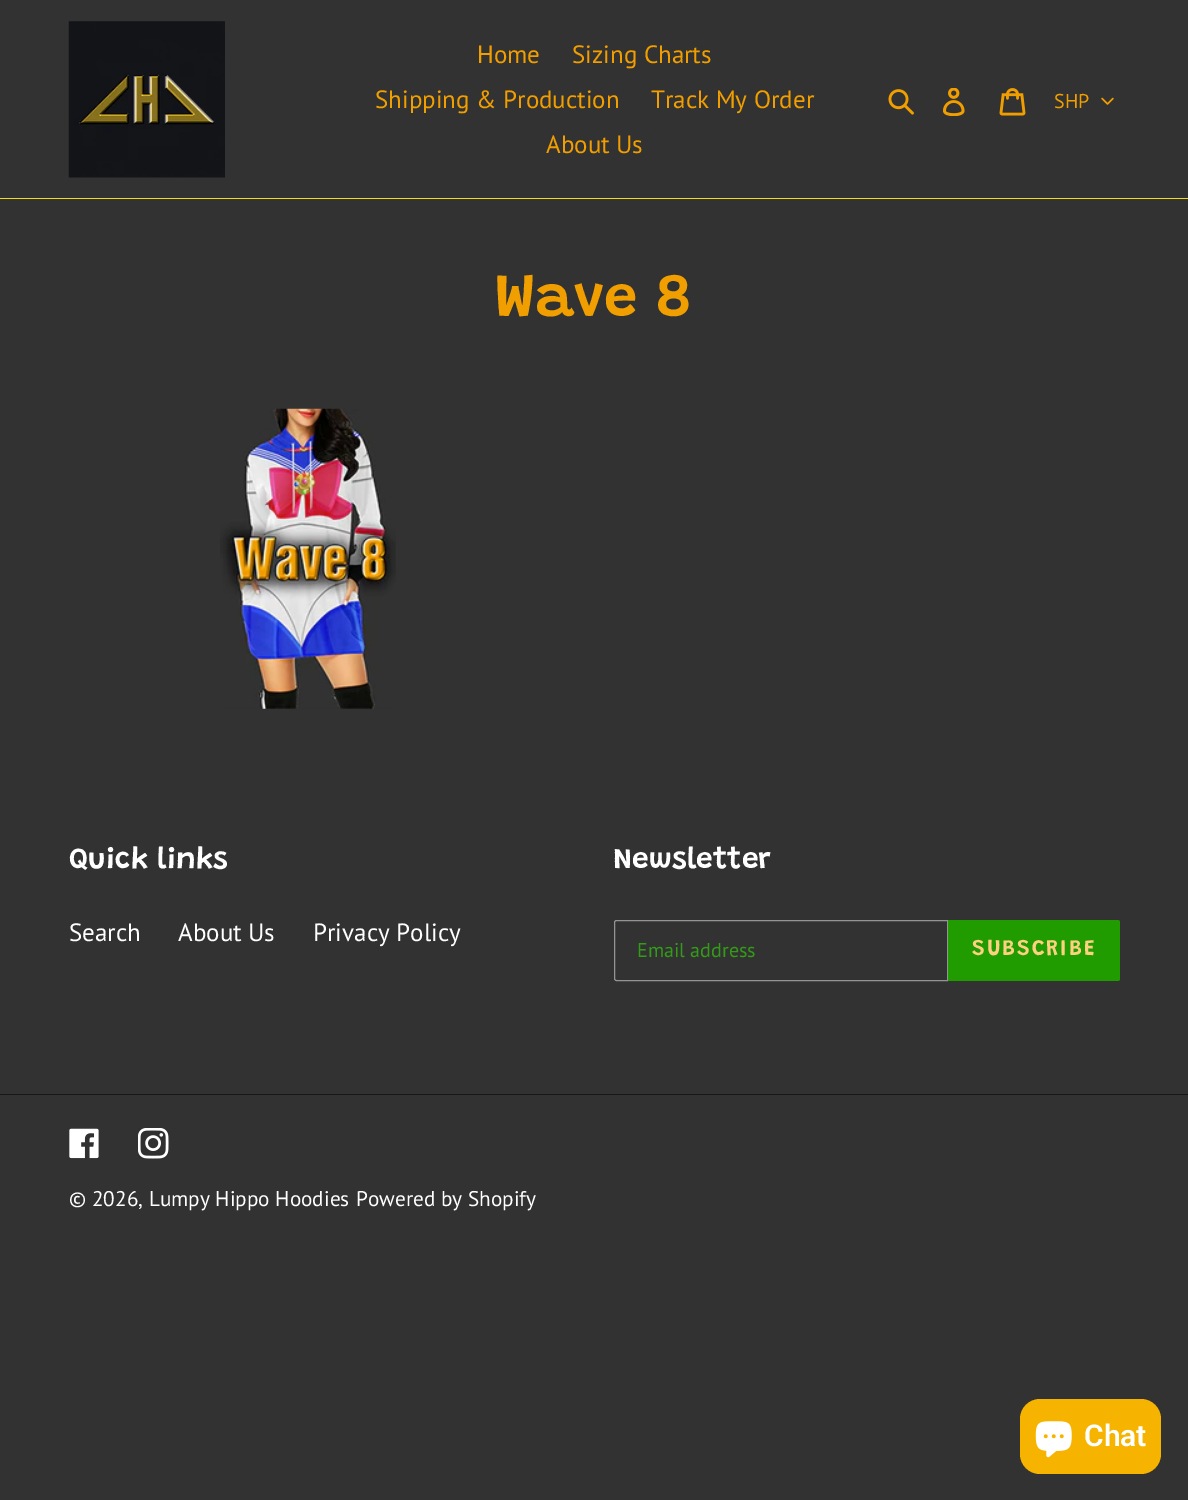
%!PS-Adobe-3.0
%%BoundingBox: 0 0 1188 1500
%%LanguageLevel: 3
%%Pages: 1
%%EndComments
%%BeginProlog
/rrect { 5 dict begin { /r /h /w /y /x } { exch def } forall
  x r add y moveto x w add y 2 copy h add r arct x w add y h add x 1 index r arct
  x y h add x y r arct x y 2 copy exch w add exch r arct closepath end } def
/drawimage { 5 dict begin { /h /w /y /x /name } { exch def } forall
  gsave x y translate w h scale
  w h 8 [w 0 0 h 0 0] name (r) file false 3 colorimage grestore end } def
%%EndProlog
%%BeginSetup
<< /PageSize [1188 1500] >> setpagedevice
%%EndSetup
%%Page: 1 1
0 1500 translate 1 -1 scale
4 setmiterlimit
0.196 setgray
0 0 1188 1500 rectfill
0.953 0.863 0.063 setrgbcolor
0 198 1188 1 rectfill
(images/1.raw) 68 21 157 157 drawimage
(images/2.raw) 888 89 26 26 drawimage
(images/3.raw) 942 88 23 28 drawimage
(images/4.raw) 999 88 27 28 drawimage
(images/5.raw) 1101 97 13 8 drawimage
(images/6.raw) 220 408 176 301 drawimage
0.58 setgray
newpath 616.5 920.5 moveto 947.5 920.5 lineto 947.5 980.5 lineto 616.5 980.5 lineto 615.5 980.5 614.5 979.5 614.5 978.5 curveto 614.5 922.5 lineto 614.5 921.5 615.5 920.5 616.5 920.5 curveto closepath stroke
0.125 0.612 0 setrgbcolor
newpath 948 920 moveto 1117.5 920 lineto 1119 920 1120 921 1120 922.5 curveto 1120 978.5 lineto 1120 980 1119 981 1117.5 981 curveto 948 981 lineto closepath fill
0.09 setgray
0 1094 1188 1 rectfill
(images/7.raw) 69 1128 30 31 drawimage
(images/8.raw) 138 1128 31 31 drawimage
0.965 0.706 0 setrgbcolor
1020 1399 141 75 20 rrect fill
(images/9.raw) 1035 1421 37 37 drawimage
/PTSans-Regular [25 0 0 -25 0 0] selectfont
0.945 0.62 0 setrgbcolor
477 63 moveto (Home) show
572 63 moveto (Sizing Charts) show
375 108 moveto (Shipping & Production) show
651 108 moveto (Track My Order) show
546 153 moveto (About Us) show
/PTSans-Regular [20 0 0 -20 0 0] selectfont
1054 108 moveto (SHP) show
/Grandstander-SemiBold [60 0 0 -60 0 0] selectfont
495 316 moveto (Wave 8) show
/Grandstander-SemiBold [30 0 0 -30 0 0] selectfont
1 setgray
69 868 moveto (Quick links) show
/PTSans-Regular [25 0 0 -25 0 0] selectfont
69 941 moveto (Search) show
178 941 moveto (About Us) show
313 941 moveto (Privacy Policy) show
/Grandstander-SemiBold [30 0 0 -30 0 0] selectfont
613 868 moveto (Newsletter) show
/PTSans-Regular [20 0 0 -20 0 0] selectfont
0.2 0.608 0.094 setrgbcolor
637 957 moveto (Email address) show
/Grandstander-SemiBold [22.5 0 0 -22.5 0 0] selectfont
0.988 0.82 0.498 setrgbcolor
972 955 moveto 1.75 0 (SUBSCRIBE) ashow
/PTSans-Regular [21.25 0 0 -21.25 0 0] selectfont
1 setgray
69 1206 moveto (© 2026, Lumpy Hippo Hoodies) show
356 1206 moveto (Powered by Shopify) show
/Roboto-SemiBold [30 0 0 -30 0 0] selectfont
1084 1446 moveto (Chat) show
showpage
%%EOF
